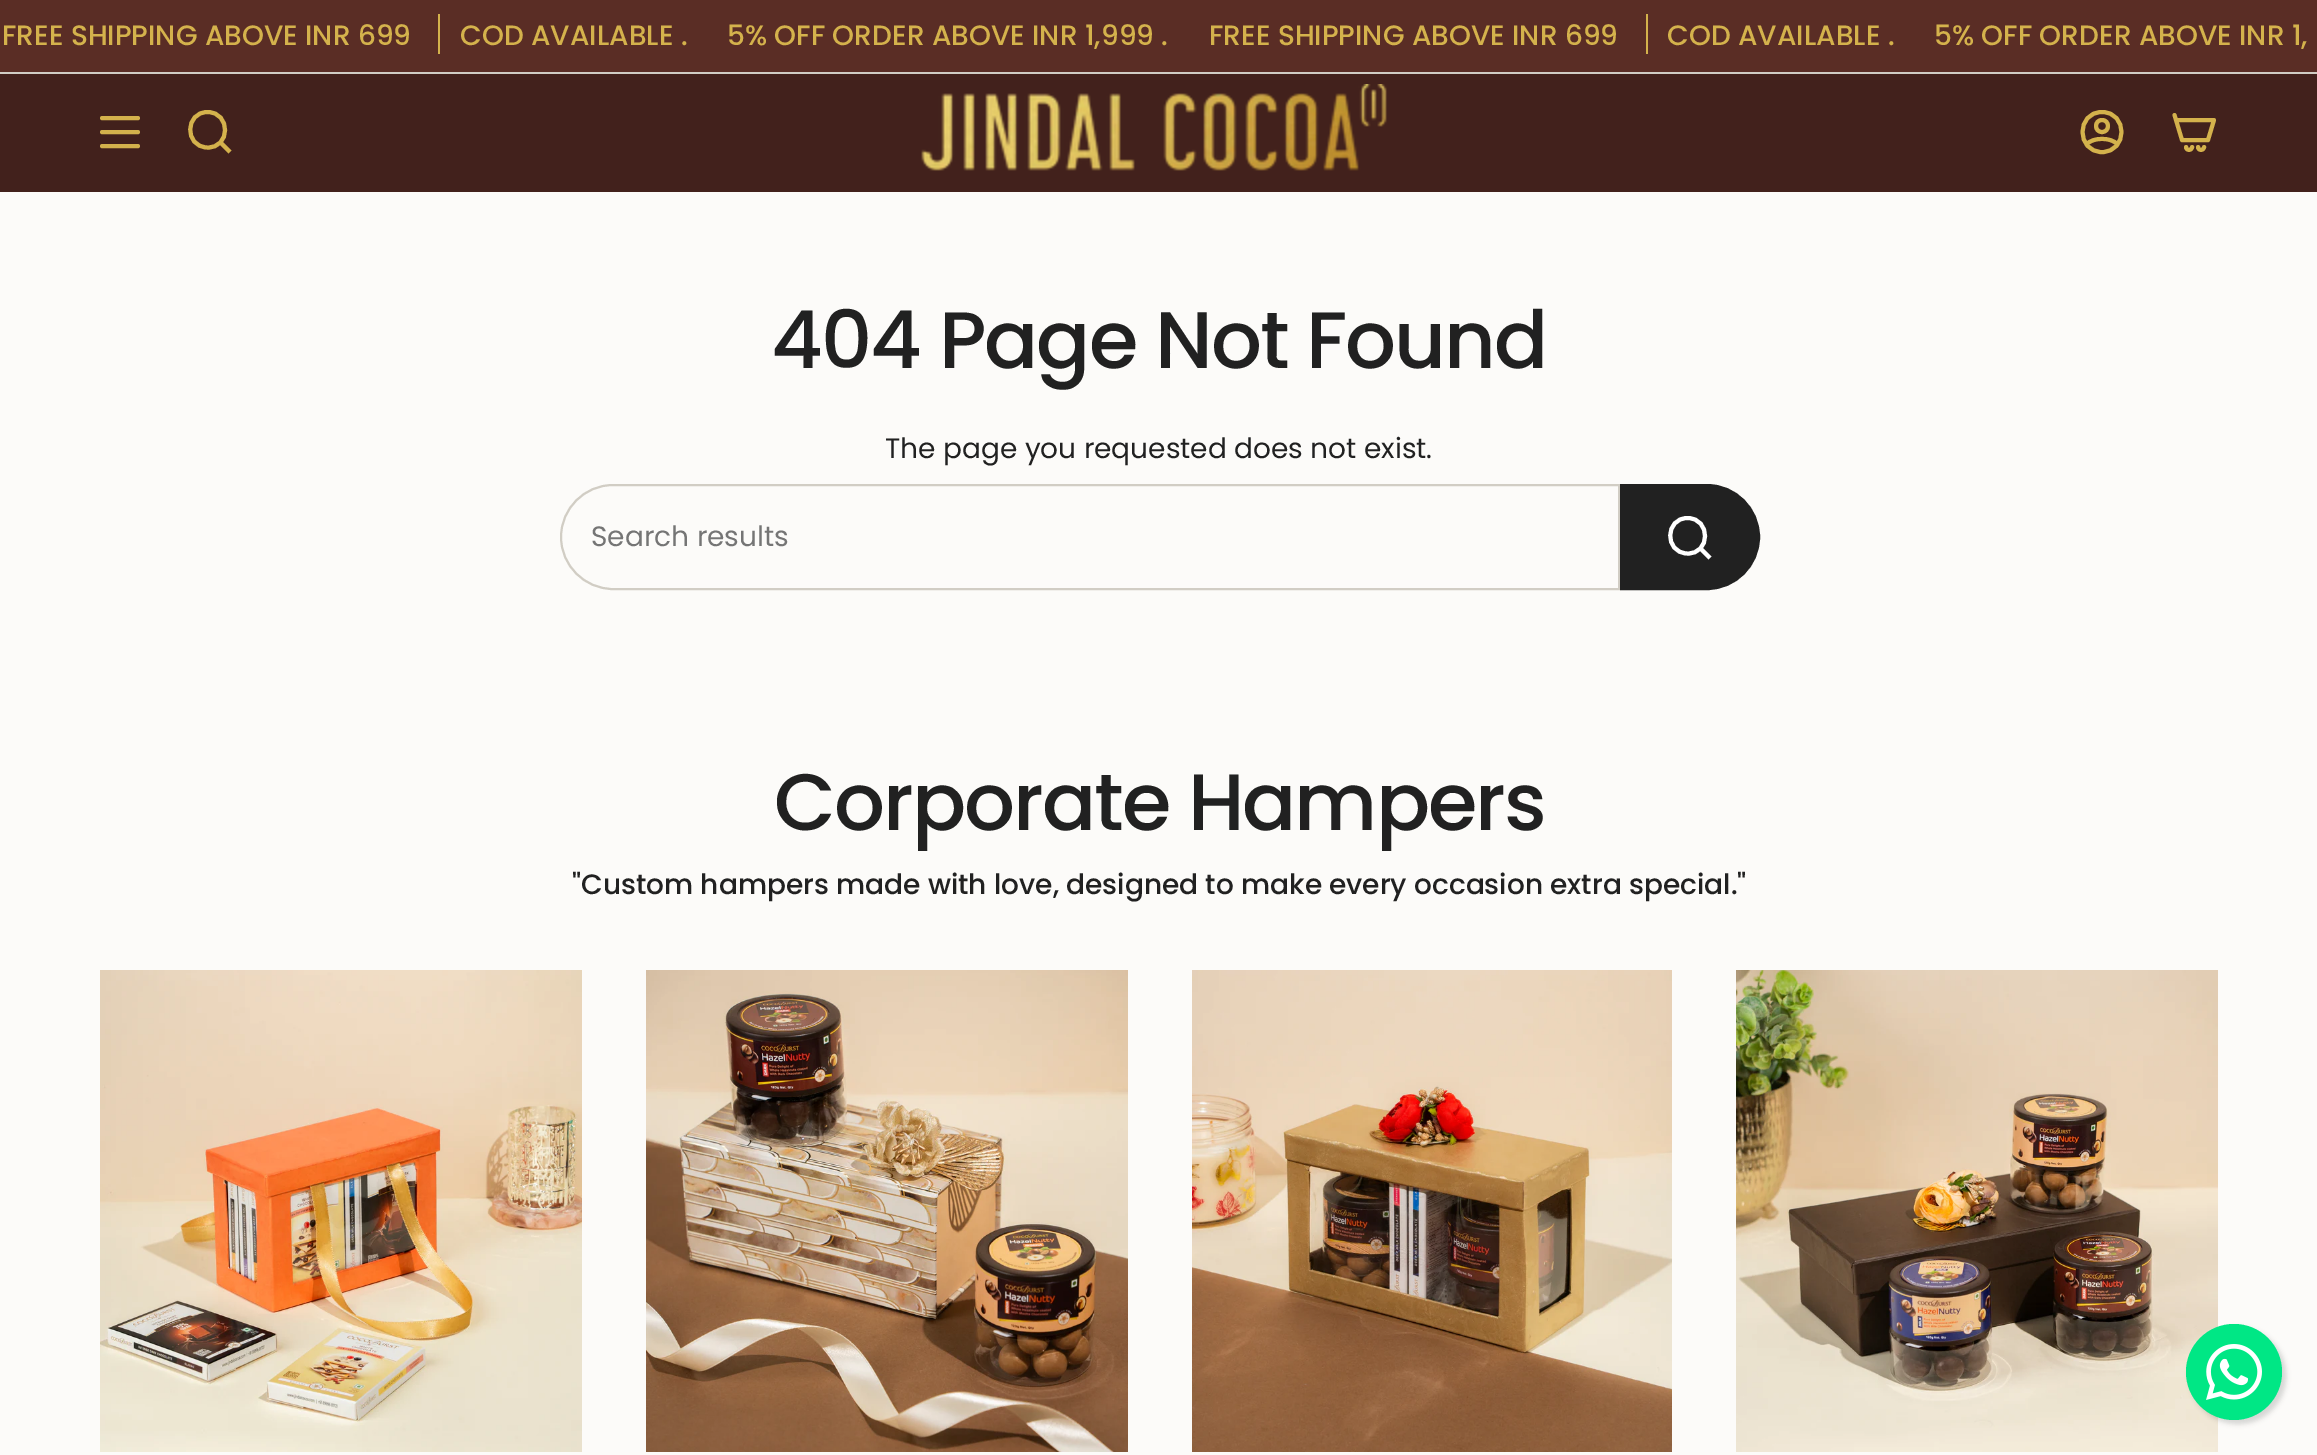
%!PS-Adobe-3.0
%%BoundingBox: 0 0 2317 1455
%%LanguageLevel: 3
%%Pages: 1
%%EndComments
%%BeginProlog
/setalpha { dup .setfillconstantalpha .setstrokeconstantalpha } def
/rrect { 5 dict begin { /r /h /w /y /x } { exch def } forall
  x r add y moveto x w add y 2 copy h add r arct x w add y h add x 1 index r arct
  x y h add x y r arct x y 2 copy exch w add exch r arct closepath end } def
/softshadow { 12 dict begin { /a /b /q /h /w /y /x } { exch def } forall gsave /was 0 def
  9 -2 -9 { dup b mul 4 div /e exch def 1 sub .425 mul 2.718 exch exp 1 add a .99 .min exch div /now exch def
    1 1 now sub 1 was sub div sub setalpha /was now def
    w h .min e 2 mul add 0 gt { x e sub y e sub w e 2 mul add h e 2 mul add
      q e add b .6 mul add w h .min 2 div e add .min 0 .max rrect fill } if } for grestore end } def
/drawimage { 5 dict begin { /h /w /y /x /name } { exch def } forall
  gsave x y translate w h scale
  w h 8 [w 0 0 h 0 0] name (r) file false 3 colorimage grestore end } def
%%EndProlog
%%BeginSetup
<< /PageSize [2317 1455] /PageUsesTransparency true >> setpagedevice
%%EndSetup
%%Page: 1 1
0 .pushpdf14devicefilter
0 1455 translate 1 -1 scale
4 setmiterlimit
0.988 0.984 0.976 setrgbcolor
0 0 2317 1455 rectfill
0.353 0.176 0.145 setrgbcolor
0 0 2317 72 rectfill
0.82 0.804 0.769 setrgbcolor
0 72 2317 2 rectfill
0.831 0.698 0.298 setrgbcolor
438 14 2 40 rectfill
1646 14 2 40 rectfill
0.259 0.129 0.11 setrgbcolor
0 74 2317 118 rectfill
0.831 0.698 0.298 setrgbcolor
4 setlinewidth
1 setlinecap
1 setlinejoin
newpath 102 118 moveto 138 118 lineto 102 132 moveto 138 132 lineto 102 146 moveto 138 146 lineto stroke
0 setlinecap
0 setlinejoin
newpath 207.5 112 moveto 231 112 231 148.5 207 147.5 curveto 184 146.5 185 112 207.5 112 curveto closepath 220 142 moveto 230 152 lineto stroke
(images/1.raw) 921 84 466 87 drawimage
1 setlinecap
1 setlinejoin
newpath 2102 112 moveto 2076 112 2076 152 2102 152 curveto 2128 152 2128 112 2102 112 curveto closepath 2086.5 144.5 moveto 2092.5 137 2111.5 137 2117.5 144.5 curveto 2102 132 moveto 2110 132 2110 120 2102 120 curveto 2094 120 2094 132 2102 132 curveto closepath stroke
newpath 2176 120 moveto 2214 120 lineto 2208 140 lineto 2182 140 lineto closepath 2176 120 moveto 2174.5 115 lineto 2192 147 moveto 2192 151 2186 151 2186 147 curveto 2204 147 moveto 2204 151 2198 151 2198 147 curveto stroke
0.82 0.804 0.769 setrgbcolor
2 setlinewidth
0 setlinecap
0 setlinejoin
newpath 613 485 moveto 1619 485 lineto 1619 589 lineto 613 589 lineto 584.5 589 561 565.5 561 537 curveto 561 508.5 584.5 485 613 485 curveto closepath stroke
0.129 setgray
newpath 1621 485 moveto 1707 485 lineto 1735.5 485 1759 508.5 1759 537 curveto 1759 565.5 1735.5 589 1707 589 curveto 1621 589 lineto closepath gsave fill grestore
stroke
1 setgray
4 setlinewidth
newpath 1687.5 518 moveto 1711 518 1711 554.5 1687 553.5 curveto 1664 552.5 1665 518 1687.5 518 curveto closepath 1700 548 moveto 1710 558 lineto stroke
(images/2.raw) 100 970 482 482 drawimage
(images/3.raw) 646 970 482 482 drawimage
(images/4.raw) 1192 970 480 482 drawimage
(images/5.raw) 1736 970 482 482 drawimage
0 setgray
2190 1328 96 96 48 2.5 0.15 softshadow
0 0.906 0.522 setrgbcolor
newpath 2234 1372 48 0 360 arc closepath fill
(images/6.raw) 2206 1344 56 56 drawimage
/Poppins-Medium [28 0 0 -28 0 0] selectfont
0.831 0.698 0.298 setrgbcolor
2 45 moveto (FREE SHIPPING ABOVE INR 699) show
460 45 moveto (COD AVAILABLE .) show
727 45 moveto (5% OFF ORDER ABOVE INR 1,999 .) show
1209 45 moveto (FREE SHIPPING ABOVE INR 699) show
1667 45 moveto (COD AVAILABLE .) show
1934 45 moveto (5% OFF ORDER ABOVE INR 1,) show
/Poppins-Medium [80 0 0 -80 0 0] selectfont
0.129 setgray
771 368 moveto -2 0 (404 Page Not Found) ashow
/Poppins-Regular [28 0 0 -28 0 0] selectfont
885 458 moveto (The page you requested does not exist.) show
0.459 setgray
591 546 moveto (Search results) show
/Poppins-Medium [80 0 0 -80 0 0] selectfont
0.129 setgray
774 830 moveto -2 0 (Corporate Hampers) ashow
/Poppins-Medium [28 0 0 -28 0 0] selectfont
572 894 moveto ("Custom hampers made with love, designed to make every occasion extra special.") show
.poppdf14devicefilter showpage
%%EOF
